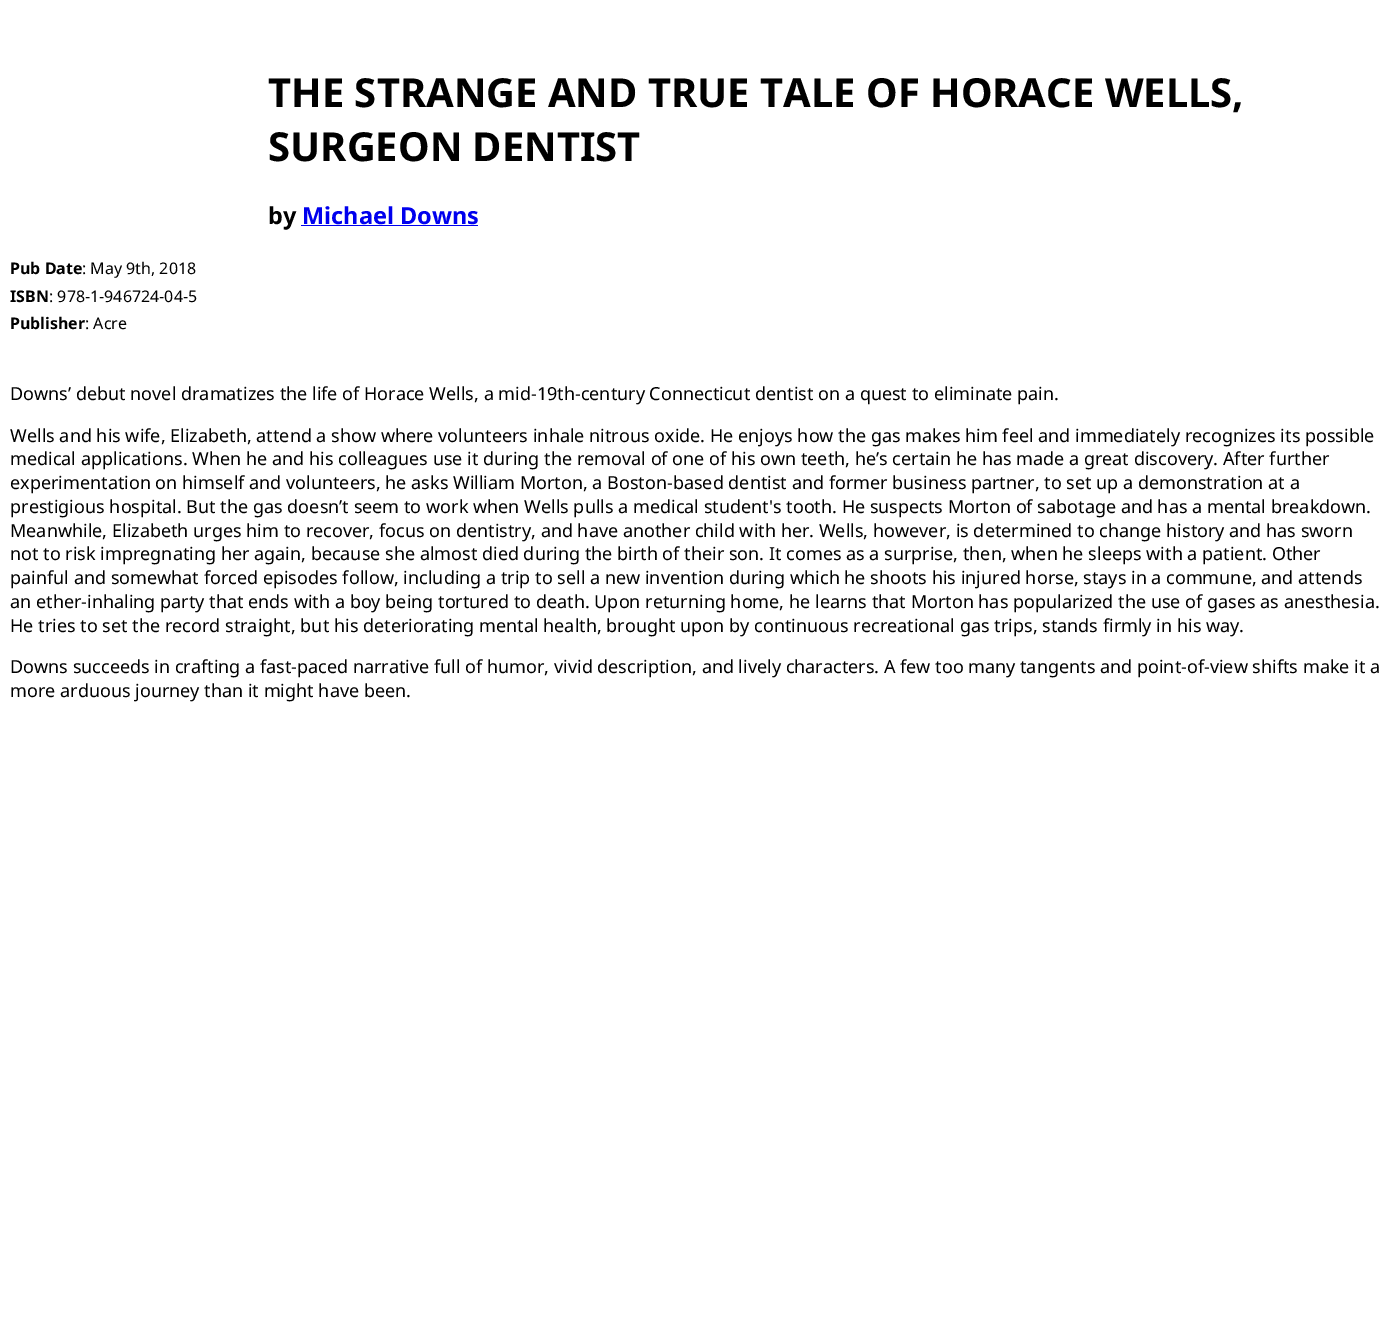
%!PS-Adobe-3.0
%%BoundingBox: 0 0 1390 1326
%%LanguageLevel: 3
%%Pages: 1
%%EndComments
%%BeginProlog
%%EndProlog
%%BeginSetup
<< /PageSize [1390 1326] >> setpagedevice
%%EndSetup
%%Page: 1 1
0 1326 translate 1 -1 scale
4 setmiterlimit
1 setgray
0 0 1390 1326 rectfill
0 0 0.933 setrgbcolor
301 225 177 1 rectfill
/NotoSans-Bold [40 0 0 -40 0 0] selectfont
0 setgray
268 107 moveto (THE STRANGE AND TRUE TALE OF HORACE WELLS,) show
268 161 moveto (SURGEON DENTIST) show
/NotoSans-Bold [23.5 0 0 -23.5 0 0] selectfont
268 224 moveto (by) show
0 0 0.933 setrgbcolor
302 224 moveto (Michael Downs) show
/NotoSans-Bold [16 0 0 -16 0 0] selectfont
0 setgray
10 274 moveto (Pub Date) show
/NotoSans-Regular [16 0 0 -16 0 0] selectfont
82 274 moveto (: May 9th, 2018) show
/NotoSans-Bold [16 0 0 -16 0 0] selectfont
10 302 moveto (ISBN) show
/NotoSans-Regular [16 0 0 -16 0 0] selectfont
49 302 moveto (: 978-1-946724-04-5) show
/NotoSans-Bold [16 0 0 -16 0 0] selectfont
10 329 moveto (Publisher) show
/NotoSans-Regular [16 0 0 -16 0 0] selectfont
85 329 moveto (: Acre) show
/NotoSans-Regular [18 0 0 -18 0 0] selectfont
10 400 moveto (Downs’ debut novel dramatizes the life of Horace Wells, a mid-19th-century Connecticut dentist on a quest to eliminate pain.) show
10 442 moveto (Wells and his wife, Elizabeth, attend a show where volunteers inhale nitrous oxide. He enjoys how the gas makes him feel and immediately recognizes its possible) show
10 465 moveto (medical applications. When he and his colleagues use it during the removal of one of his own teeth, he’s certain he has made a great discovery. After further) show
10 489 moveto (experimentation on himself and volunteers, he asks William Morton, a Boston-based dentist and former business partner, to set up a demonstration at a) show
10 513 moveto (prestigious hospital. But the gas doesn’t seem to work when Wells pulls a medical student's tooth. He suspects Morton of sabotage and has a mental breakdown.) show
10 537 moveto (Meanwhile, Elizabeth urges him to recover, focus on dentistry, and have another child with her. Wells, however, is determined to change history and has sworn) show
10 560 moveto (not to risk impregnating her again, because she almost died during the birth of their son. It comes as a surprise, then, when he sleeps with a patient. Other) show
10 584 moveto (painful and somewhat forced episodes follow, including a trip to sell a new invention during which he shoots his injured horse, stays in a commune, and attends) show
10 608 moveto (an ether-inhaling party that ends with a boy being tortured to death. Upon returning home, he learns that Morton has popularized the use of gases as anesthesia.) show
10 632 moveto (He tries to set the record straight, but his deteriorating mental health, brought upon by continuous recreational gas trips, stands firmly in his way.) show
10 673 moveto (Downs succeeds in crafting a fast-paced narrative full of humor, vivid description, and lively characters. A few too many tangents and point-of-view shifts make it a) show
10 697 moveto (more arduous journey than it might have been.) show
showpage
%%EOF
